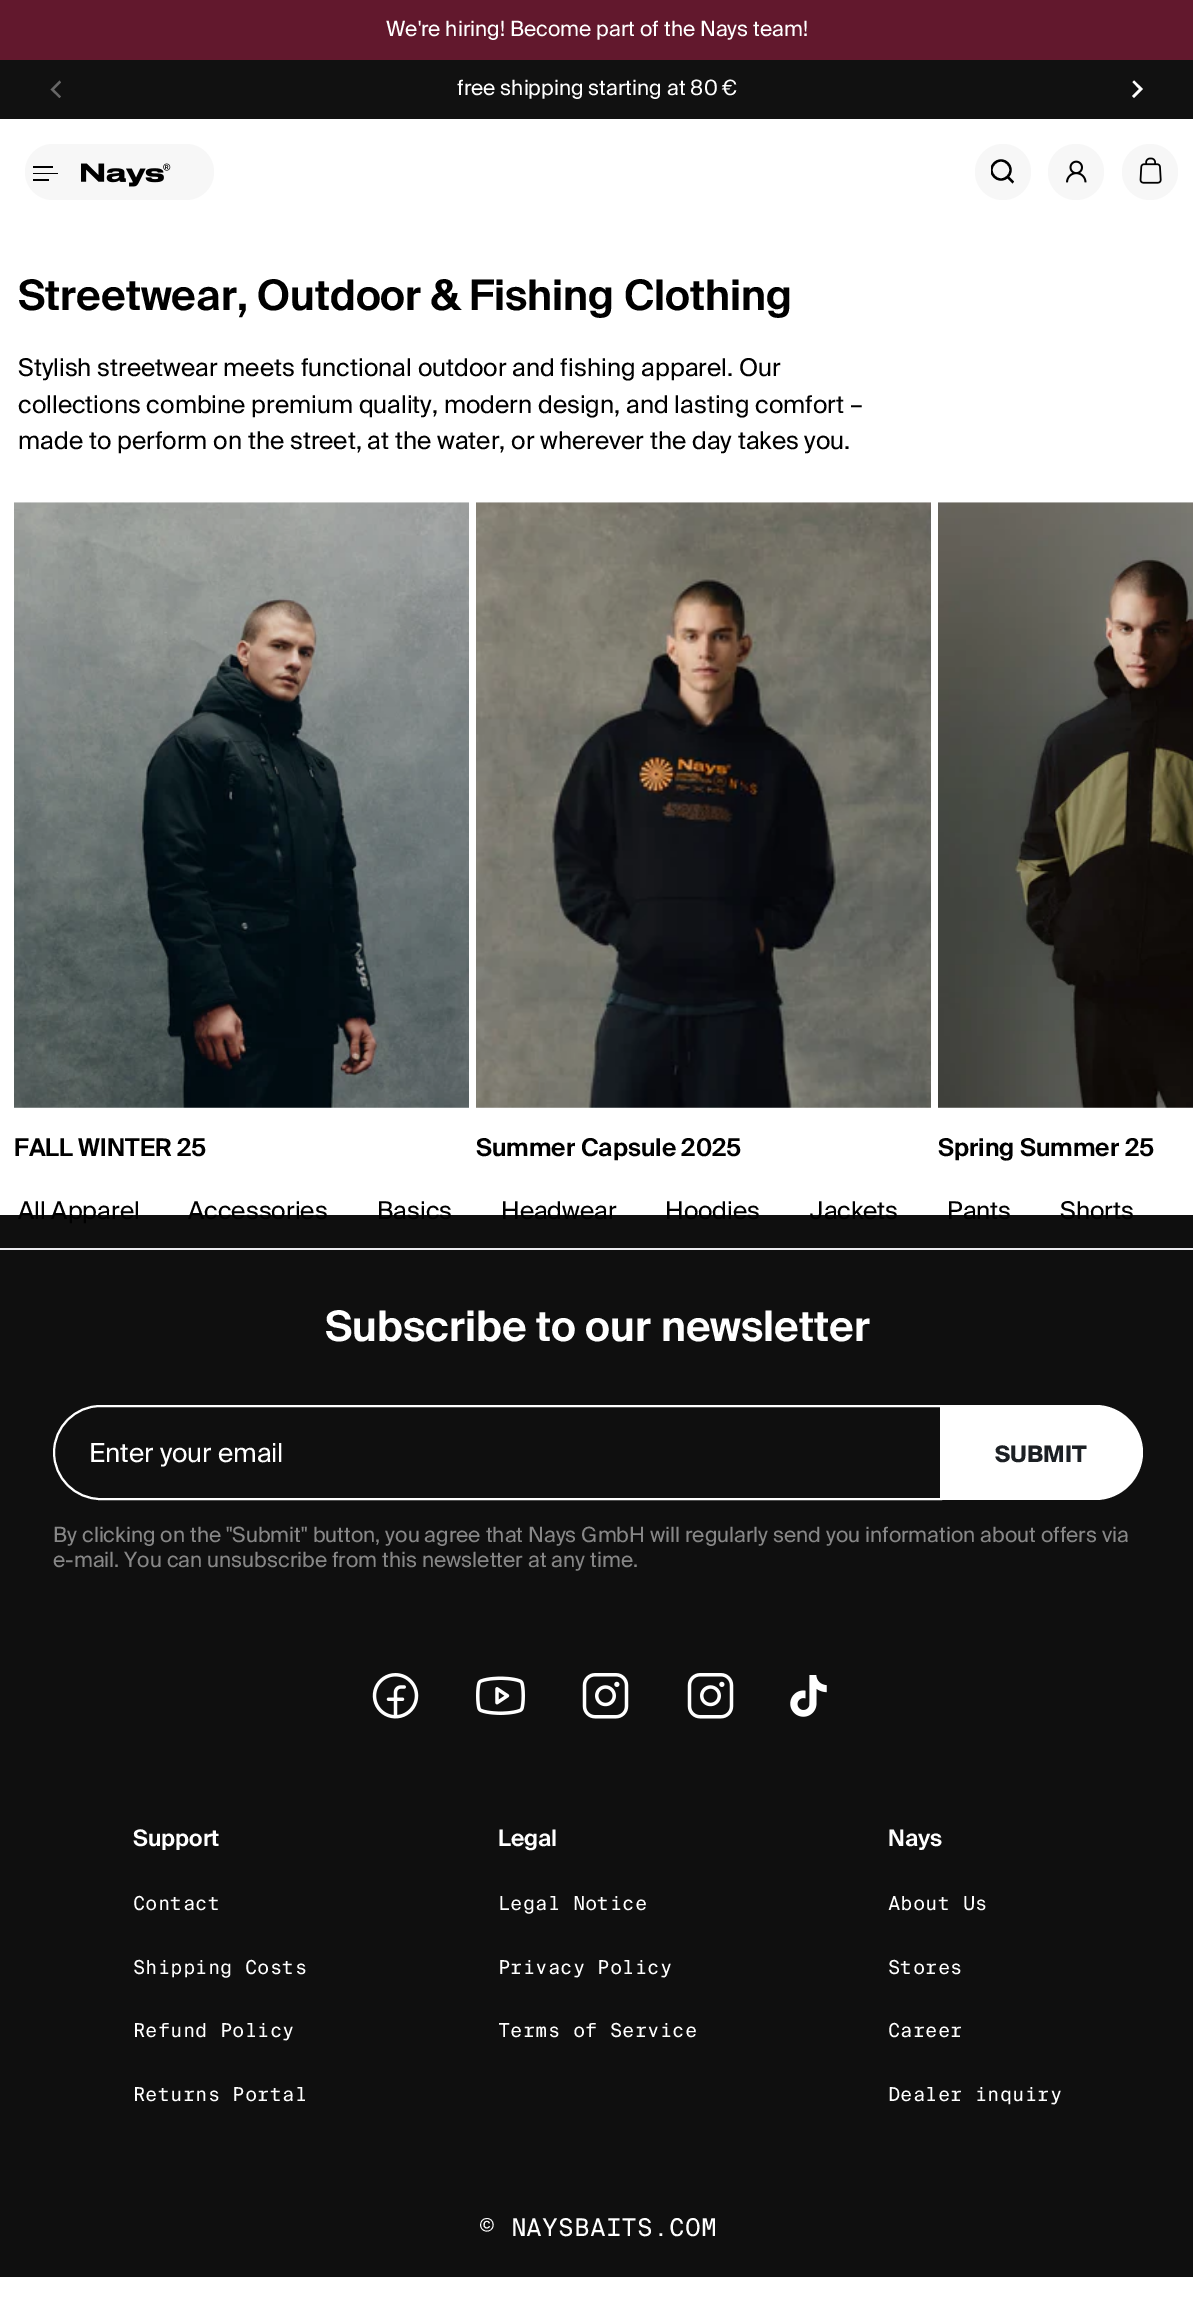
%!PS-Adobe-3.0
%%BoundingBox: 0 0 1193 2308
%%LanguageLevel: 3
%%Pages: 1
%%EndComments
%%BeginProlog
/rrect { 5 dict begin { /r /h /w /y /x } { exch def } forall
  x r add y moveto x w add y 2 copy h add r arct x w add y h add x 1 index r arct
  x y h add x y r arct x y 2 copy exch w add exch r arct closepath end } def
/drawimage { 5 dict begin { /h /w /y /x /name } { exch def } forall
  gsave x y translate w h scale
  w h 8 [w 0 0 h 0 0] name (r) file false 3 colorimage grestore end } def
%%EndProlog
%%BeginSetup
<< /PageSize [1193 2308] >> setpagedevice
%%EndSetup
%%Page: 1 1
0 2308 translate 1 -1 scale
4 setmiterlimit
1 setgray
0 0 1193 2308 rectfill
0.384 0.094 0.176 setrgbcolor
0 0 1193 60 rectfill
0.067 setgray
0 60 1193 59 rectfill
0.404 setgray
newpath 54 89.5 moveto 61 82.5 lineto 59.5 80.5 lineto 50.5 89.5 lineto 59.5 98 lineto 61 96.5 lineto closepath eofill
1 setgray
newpath 1139 89 moveto 1132 96 lineto 1134 98 lineto 1143 89 lineto 1134 80.5 lineto 1132.5 82 lineto closepath eofill
0.969 setgray
25 144 189 56 28 rrect fill
(images/1.raw) 81 163 90 24 drawimage
0 setgray
33 166 20 2 rectfill
33 173 25 1 rectfill
33 179 16 2 rectfill
0.969 setgray
newpath 1003 172 28 0 360 arc closepath fill
gsave
991 159 24 25 rectclip
0 setgray
2.3 setlinewidth
newpath 1001 170 9.5 0 360 arc closepath stroke
grestore
0 setgray
newpath 1007 178 moveto 1008.5 176 lineto 1014 181.5 lineto 1012.5 183.5 lineto closepath fill
0.969 setgray
newpath 1076 172 28 0 360 arc closepath fill
(images/2.raw) 1066 160 21 23 drawimage
newpath 1150 172 28 0 360 arc closepath fill
(images/3.raw) 1139 157 23 27 drawimage
(images/4.raw) 14 502 455 606 drawimage
(images/5.raw) 476 502 455 606 drawimage
(images/6.raw) 938 502 255 606 drawimage
0.059 setgray
0 1215 1193 1062 rectfill
0.922 0.922 0.937 setrgbcolor
0 1248 1193 2 rectfill
1 setgray
2 setlinewidth
newpath 100.5 1406 moveto 941 1406 lineto 941 1499 lineto 100.5 1499 lineto 75 1499 54 1478 54 1452.5 curveto 54 1427 75 1406 100.5 1406 curveto closepath stroke
newpath 940 1405 moveto 1095.5 1405 lineto 1121.5 1405 1143 1426.5 1143 1452.5 curveto 1143 1478.5 1121.5 1500 1095.5 1500 curveto 940 1500 lineto closepath fill
(images/7.raw) 372 1673 47 46 drawimage
(images/8.raw) 476 1676 49 39 drawimage
(images/9.raw) 582 1673 47 46 drawimage
(images/9.raw) 687 1673 47 46 drawimage
(images/10.raw) 790 1675 37 42 drawimage
/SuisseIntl-Regular [21 0 0 -21 0 0] selectfont
386 36 moveto (We're hiring! Become part of the Nays team!) show
457 95 moveto (free shipping starting at 80 €) show
/SuisseIntl-SemiBold [42 0 0 -42 0 0] selectfont
0 setgray
18 310 moveto (Streetwear, Outdoor & Fishing Clothing) show
/SuisseIntl-Regular [24.5 0 0 -24.5 0 0] selectfont
18 376 moveto (Stylish streetwear meets functional outdoor and fishing apparel. Our) show
18 413 moveto (collections combine premium quality, modern design, and lasting comfort –) show
18 449 moveto (made to perform on the street, at the water, or wherever the day takes you.) show
/SuisseIntl-SemiBold [24.5 0 0 -24.5 0 0] selectfont
14 1156 moveto (FALL WINTER 25) show
476 1156 moveto (Summer Capsule 2025) show
938 1156 moveto (Spring Summer 25) show
/SuisseIntl-Regular [24.5 0 0 -24.5 0 0] selectfont
18 1219 moveto (All Apparel) show
188 1219 moveto (Accessories) show
377 1219 moveto (Basics) show
501 1219 moveto (Headwear) show
665 1219 moveto (Hoodies) show
810 1219 moveto (Jackets) show
947 1219 moveto (Pants) show
1060 1219 moveto (Shorts) show
/SuisseIntl-SemiBold [42 0 0 -42 0 0] selectfont
1 setgray
325 1341 moveto (Subscribe to our newsletter) show
/SuisseIntl-Regular [26.25 0 0 -26.25 0 0] selectfont
89 1462 moveto (Enter your email) show
/SuisseIntl-Bold [22.75 0 0 -22.75 0 0] selectfont
0.11 0.125 0.141 setrgbcolor
995 1462 moveto (SUBMIT) show
/SuisseIntl-Regular [21 0 0 -21 0 0] selectfont
0.529 setgray
53 1542 moveto (By clicking on the "Submit" button, you agree that Nays GmbH will regularly send you information about offers via) show
53 1567 moveto (e-mail. You can unsubscribe from this newsletter at any time.) show
/SuisseIntl-SemiBold [22.75 0 0 -22.75 0 0] selectfont
1 setgray
133 1846 moveto (Support) show
/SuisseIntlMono-Regular [19.25 0 0 -19.25 0 0] selectfont
133 1910 moveto (Contact) show
133 1974 moveto (Shipping Costs) show
133 2037 moveto (Refund Policy) show
133 2101 moveto (Returns Portal) show
/SuisseIntl-SemiBold [22.75 0 0 -22.75 0 0] selectfont
498 1846 moveto (Legal) show
/SuisseIntlMono-Regular [19.25 0 0 -19.25 0 0] selectfont
498 1910 moveto (Legal Notice) show
498 1974 moveto (Privacy Policy) show
498 2037 moveto (Terms of Service) show
/SuisseIntl-SemiBold [22.75 0 0 -22.75 0 0] selectfont
888 1846 moveto (Nays) show
/SuisseIntlMono-Regular [19.25 0 0 -19.25 0 0] selectfont
888 1910 moveto (About Us) show
888 1974 moveto (Stores) show
888 2037 moveto (Career) show
888 2101 moveto (Dealer inquiry) show
/SuisseIntlMono-Regular [24.5 0 0 -24.5 0 0] selectfont
479 2236 moveto (© NAYSBAITS.COM) show
showpage
%%EOF
